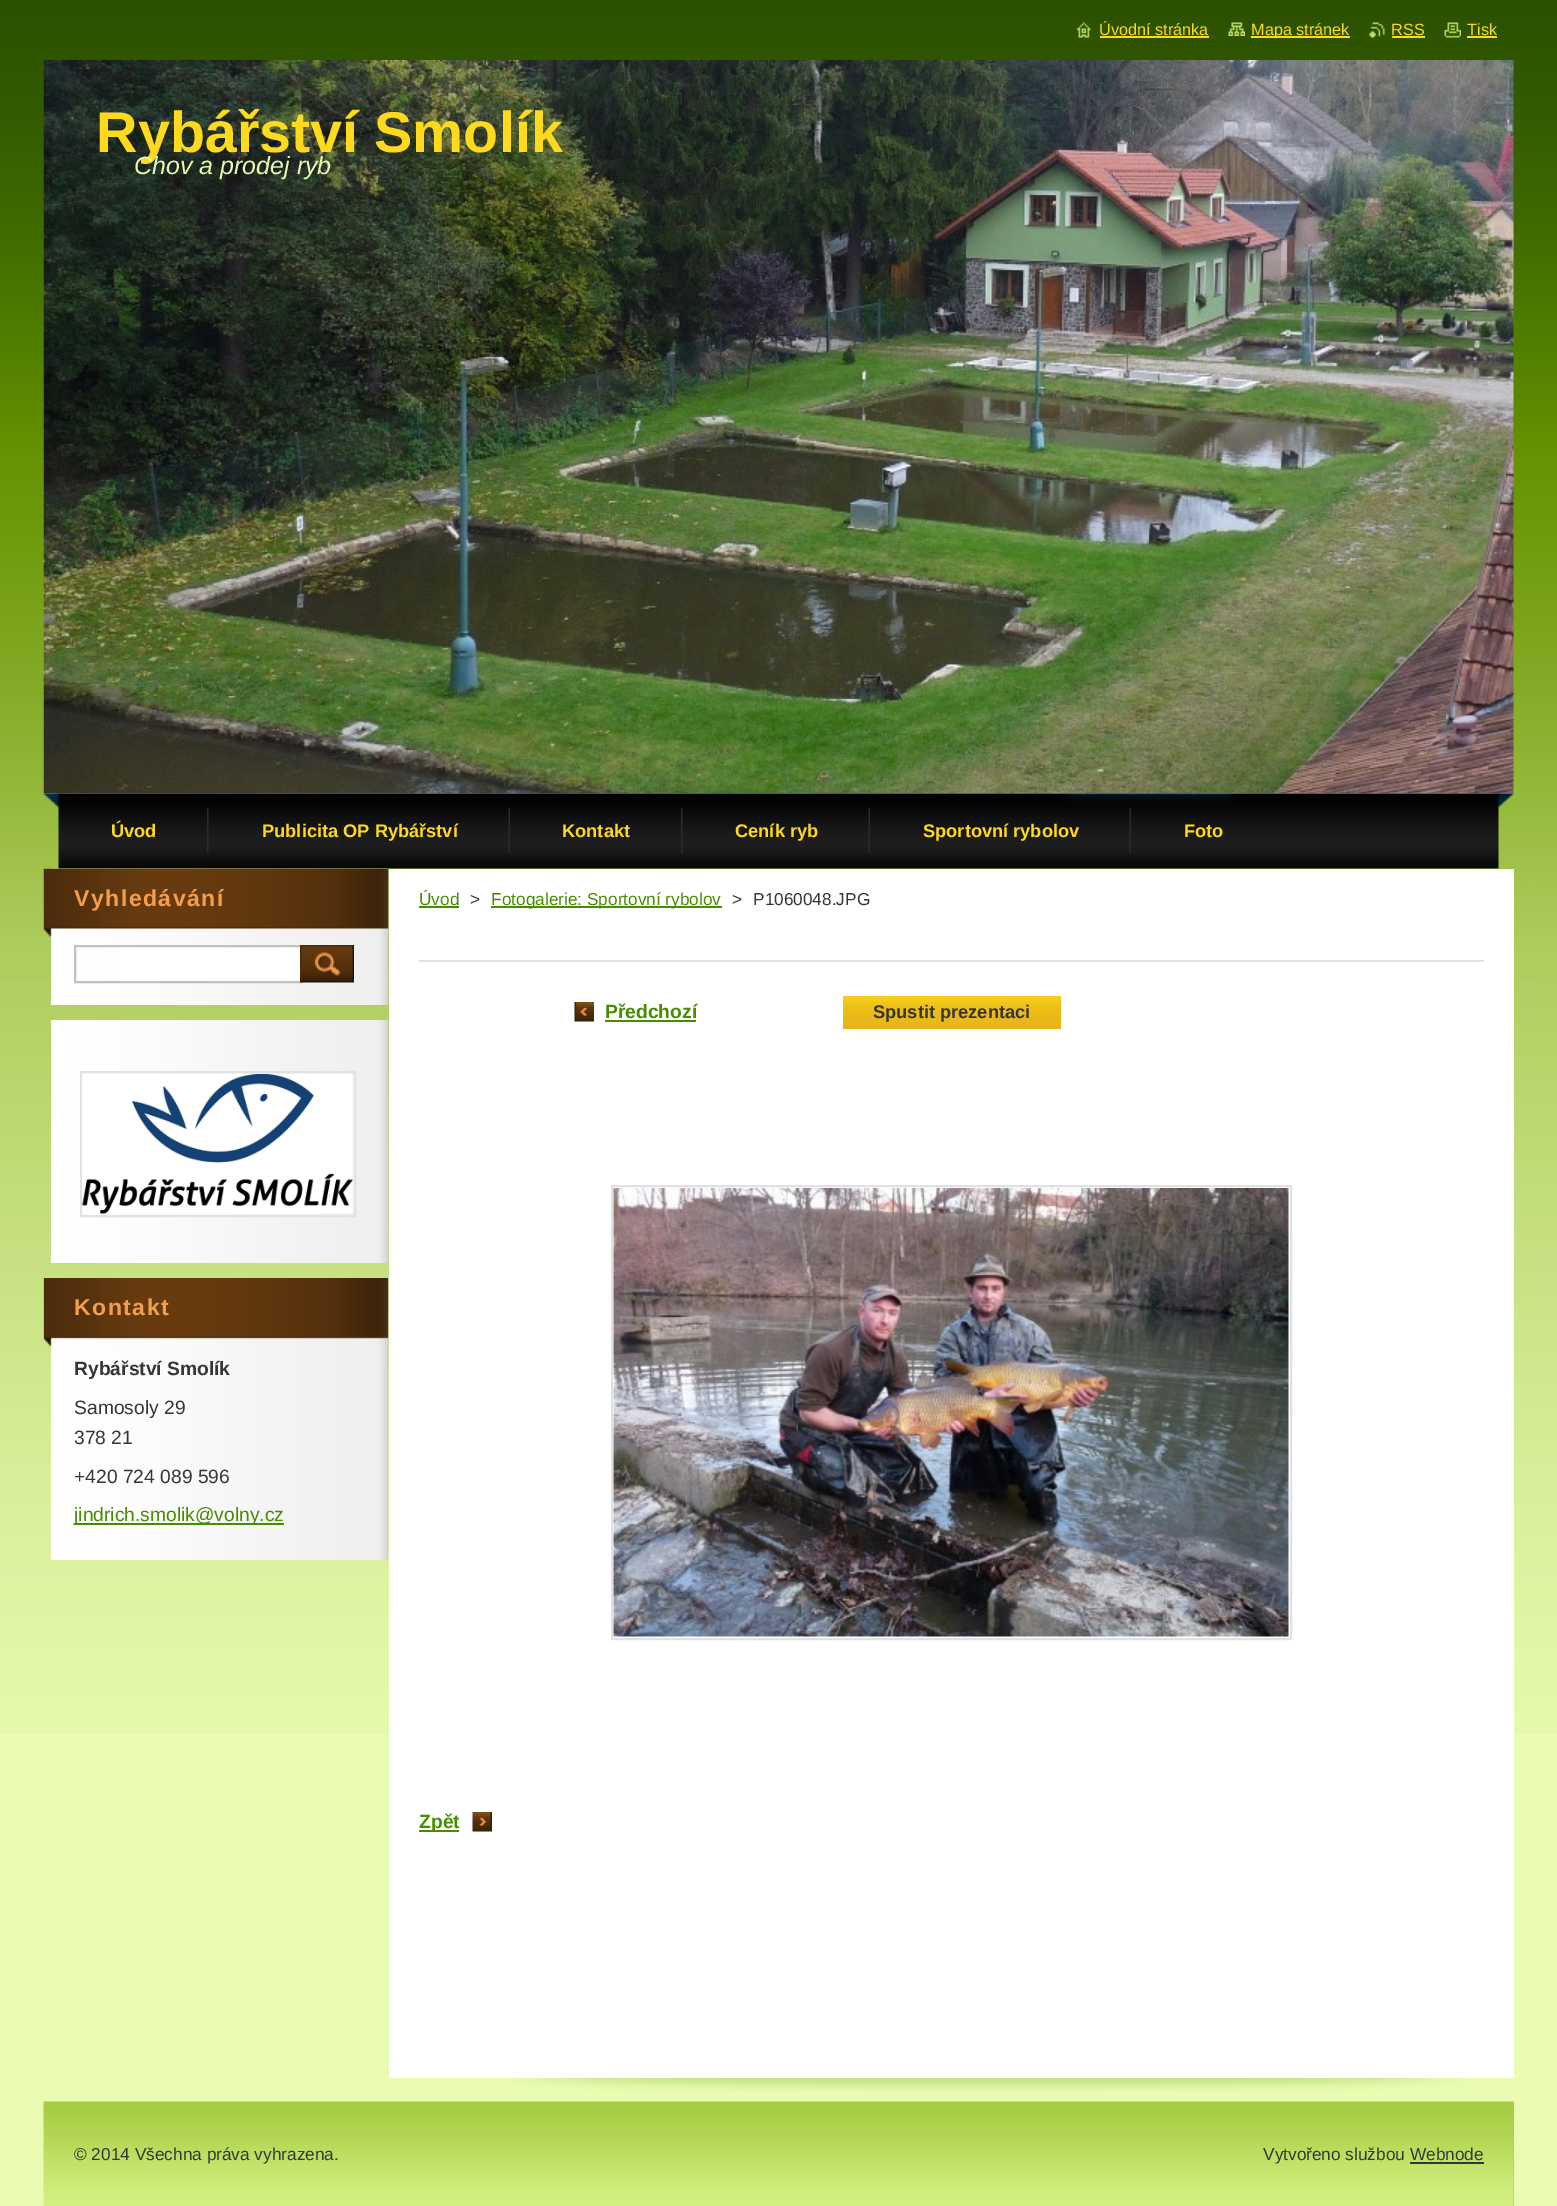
%!PS-Adobe-3.0
%%BoundingBox: 0 0 1557 2206
%%LanguageLevel: 3
%%Pages: 1
%%EndComments
%%BeginProlog
/drawimage { 5 dict begin { /h /w /y /x /name } { exch def } forall
  gsave x y translate w h scale
  w h 8 [w 0 0 h 0 0] name (r) file false 3 colorimage grestore end } def
%%EndProlog
%%BeginSetup
<< /PageSize [1557 2206] >> setpagedevice
%%EndSetup
%%Page: 1 1
0 2206 translate 1 -1 scale
4 setmiterlimit
0.914 0.988 0.694 setrgbcolor
0 0 1557 2206 rectfill
(images/1.raw) 0 0 1557 1734 drawimage
(images/2.raw) 1077 22 14 16 drawimage
0.992 0.855 0.118 setrgbcolor
1100 36 109 2 rectfill
(images/3.raw) 1228 22 17 14 drawimage
1251 36 99 2 rectfill
(images/4.raw) 1369 22 16 16 drawimage
1392 36 33 2 rectfill
(images/5.raw) 1444 22 17 16 drawimage
1467 36 30 2 rectfill
(images/7.raw) 43 793 1471 76 drawimage
(images/6.raw) 43 60 1471 734 drawimage
(images/8.raw) 207 808 2 46 drawimage
(images/9.raw) 508 808 2 46 drawimage
(images/8.raw) 681 808 2 46 drawimage
(images/9.raw) 868 808 2 46 drawimage
(images/9.raw) 1129 808 2 46 drawimage
(images/10.raw) 51 868 338 137 drawimage
(images/11.raw) 43 868 346 70 drawimage
1 setgray
120 947 180 34 rectfill
0.757 setgray
2 setlinewidth
75 946 226 36 rectstroke
(images/12.raw) 300 945 54 38 drawimage
(images/13.raw) 51 1020 338 243 drawimage
0.878 0.886 0.902 setrgbcolor
81 1072 274 144 rectstroke
(images/14.raw) 82 1074 271 140 drawimage
(images/15.raw) 51 1278 338 282 drawimage
(images/16.raw) 43 1278 346 69 drawimage
0.282 0.549 0 setrgbcolor
74 1523 210 2 rectfill
(images/17.raw) 509 2078 953 14 drawimage
1 setgray
389 869 1125 1209 rectfill
0.282 0.549 0 setrgbcolor
419 906 40 2 rectfill
491 906 231 2 rectfill
0.882 setgray
419 960 1065 2 rectfill
(images/18.raw) 574 1002 20 20 drawimage
0.282 0.549 0 setrgbcolor
605 1020 91 2 rectfill
0.918 0.729 0.094 setrgbcolor
1060 996 1 33 rectfill
(images/19.raw) 843 996 218 33 drawimage
0.882 setgray
612 1186 679 453 rectstroke
(images/20.raw) 613 1188 676 449 drawimage
(images/21.raw) 472 1812 20 20 drawimage
0.282 0.549 0 setrgbcolor
419 1830 40 2 rectfill
0.647 0.8 0.259 setrgbcolor
1513 2102 1 104 rectfill
(images/22.raw) 43 2101 1471 105 drawimage
0.212 setgray
1410 2162 74 2 rectfill
/LiberationSans-Regular [16.25 0 0 -16.25 0 0] selectfont
0.992 0.855 0.118 setrgbcolor
1099 35 moveto (Úvodní stránka) show
1251 35 moveto (Mapa stránek) show
1391 35 moveto (RSS) show
1467 35 moveto (Tisk) show
/LiberationSans-Bold [57.5 0 0 -57.5 0 0] selectfont
96 152 moveto (Rybářství Smolík) show
/LiberationSans-Italic [25 0 0 -25 0 0] selectfont
0.902 0.98 0.678 setrgbcolor
134 174 moveto (Chov a prodej ryb) show
/LiberationSans-Bold [18.25 0 0 -18.25 0 0] selectfont
0.992 0.855 0.118 setrgbcolor
111 837 moveto (Úvod) show
262 837 moveto (Publicita OP Rybářství) show
562 837 moveto (Kontakt) show
735 837 moveto (Ceník ryb) show
923 837 moveto (Sportovní rybolov) show
1184 837 moveto (Foto) show
/LiberationSans-Bold [23 0 0 -23 0 0] selectfont
0.953 0.62 0.298 setrgbcolor
74 906 moveto 1.5 0 (Vyhledávání) ashow
74 1315 moveto 1.5 0 (Kontakt) ashow
/LiberationSans-Bold [19.25 0 0 -19.25 0 0] selectfont
0.212 setgray
74 1375 moveto (Rybářství Smolík) show
/LiberationSans-Regular [19.25 0 0 -19.25 0 0] selectfont
74 1414 moveto (Samosoly 29) show
74 1444 moveto (378 21) show
74 1483 moveto (+420 724 089 596) show
0.282 0.549 0 setrgbcolor
74 1521 moveto (jindrich.smolik@volny.cz) show
/LiberationSans-Regular [17.25 0 0 -17.25 0 0] selectfont
419 905 moveto (Úvod) show
0.212 setgray
470 905 moveto (>) show
0.282 0.549 0 setrgbcolor
491 905 moveto (Fotogalerie: Sportovní rybolov) show
0.212 setgray
732 905 moveto (>) show
753 905 moveto (P1060048.JPG) show
/LiberationSans-Bold [19.25 0 0 -19.25 0 0] selectfont
0.282 0.549 0 setrgbcolor
605 1018 moveto (Předchozí) show
/LiberationSans-Bold [18.25 0 0 -18.25 0 0] selectfont
0.212 setgray
873 1018 moveto (Spustit prezentaci) show
/LiberationSans-Bold [19.25 0 0 -19.25 0 0] selectfont
0.282 0.549 0 setrgbcolor
419 1828 moveto (Zpět) show
/LiberationSans-Regular [17.25 0 0 -17.25 0 0] selectfont
0.212 setgray
74 2160 moveto (© 2014 Všechna práva vyhrazena.) show
1263 2160 moveto (Vytvořeno službou Webnode) show
showpage
%%EOF
